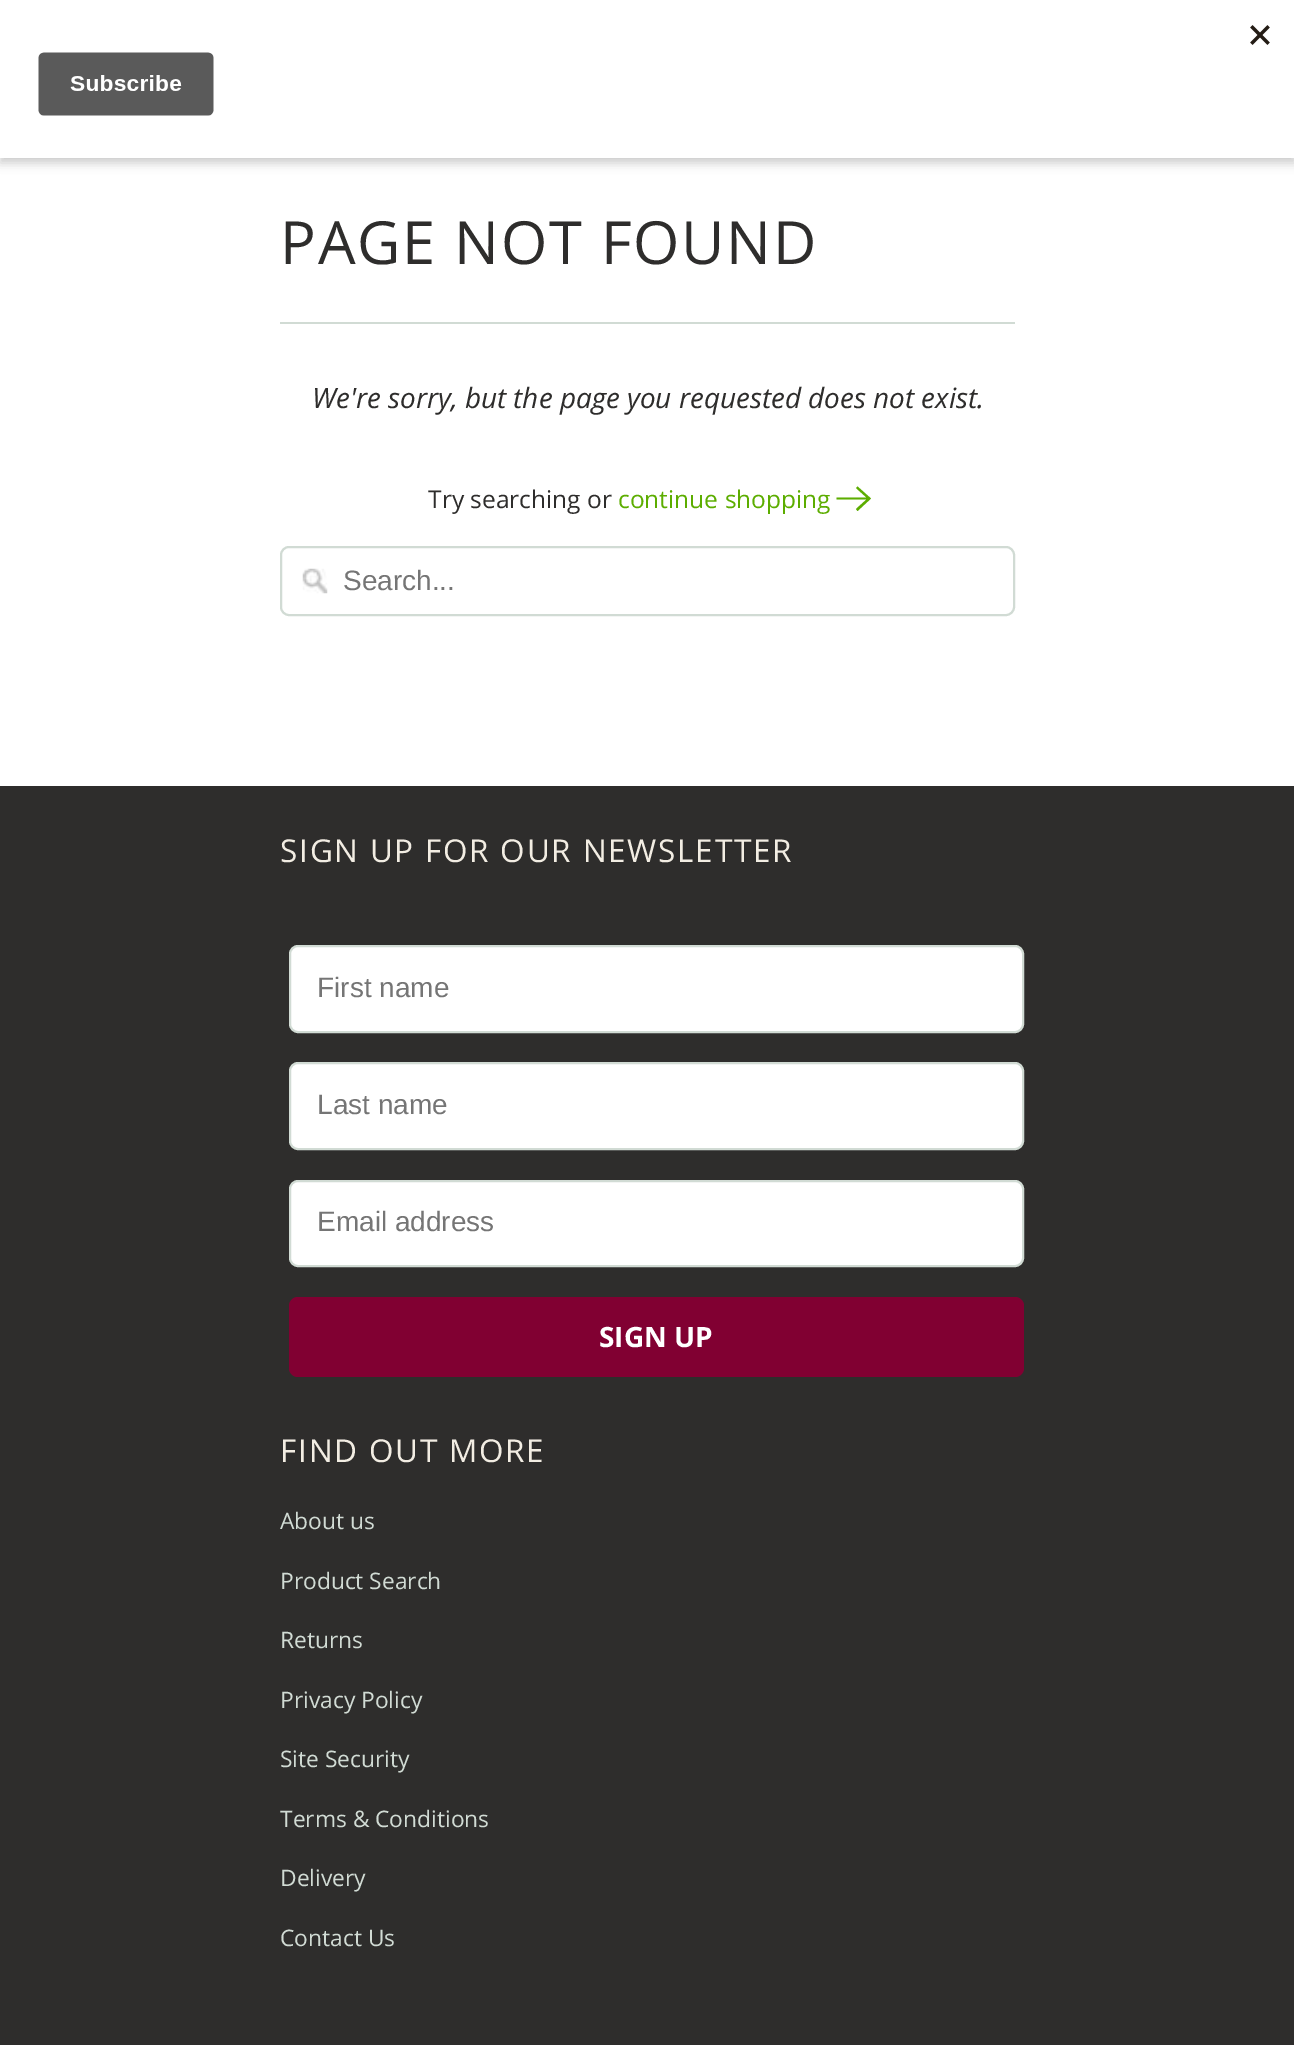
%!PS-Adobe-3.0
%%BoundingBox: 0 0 1294 2045
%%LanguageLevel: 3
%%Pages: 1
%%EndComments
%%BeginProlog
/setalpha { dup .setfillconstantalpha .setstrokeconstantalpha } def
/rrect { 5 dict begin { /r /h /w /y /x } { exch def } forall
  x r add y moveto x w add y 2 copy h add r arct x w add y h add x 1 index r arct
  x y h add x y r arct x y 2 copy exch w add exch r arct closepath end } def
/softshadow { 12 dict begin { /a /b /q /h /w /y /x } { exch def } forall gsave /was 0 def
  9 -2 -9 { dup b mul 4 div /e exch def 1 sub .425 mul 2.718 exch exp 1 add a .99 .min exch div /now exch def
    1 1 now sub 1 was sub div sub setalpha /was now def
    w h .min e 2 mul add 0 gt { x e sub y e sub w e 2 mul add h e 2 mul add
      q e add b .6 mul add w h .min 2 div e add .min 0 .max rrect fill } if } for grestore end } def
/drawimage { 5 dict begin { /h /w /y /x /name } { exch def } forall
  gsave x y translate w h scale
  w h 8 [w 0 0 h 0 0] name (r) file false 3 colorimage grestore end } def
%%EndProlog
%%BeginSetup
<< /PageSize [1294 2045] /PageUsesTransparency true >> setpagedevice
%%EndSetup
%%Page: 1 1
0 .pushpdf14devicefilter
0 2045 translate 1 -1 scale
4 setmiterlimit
1 setgray
0 0 1294 2045 rectfill
0 setgray
0 5 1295 158 0 5 0.2 softshadow
1 setgray
0 0 1294 158 rectfill
(images/1.raw) 38 25 1232 91 drawimage
0.82 0.859 0.831 setrgbcolor
280 322 735 2 rectfill
0.361 0.678 0 setrgbcolor
newpath 871 498.5 moveto 857.5 511 lineto 856 509 lineto 866.5 499.5 lineto 836.5 499.5 lineto 836.5 497.5 lineto 866.5 497.5 lineto 856 488 lineto 857.5 486.5 lineto closepath fill
(images/2.raw) 302 568 26 26 drawimage
0.82 0.859 0.831 setrgbcolor
2 setlinewidth
281 547 733 68 8 rrect stroke
0.18 0.176 0.173 setrgbcolor
0 786 1294 1259 rectfill
1 setgray
290 946 733 86 8 rrect gsave fill grestore
0.82 0.859 0.831 setrgbcolor
stroke
1 setgray
290 1063 733 86 8 rrect gsave fill grestore
0.82 0.859 0.831 setrgbcolor
stroke
1 setgray
290 1181 733 85 8 rrect gsave fill grestore
0.82 0.859 0.831 setrgbcolor
stroke
0.506 0 0.196 setrgbcolor
289 1297 735 80 9 rrect fill
/OpenSans-Regular [59.5 0 0 -59.5 0 0] selectfont
0.18 0.176 0.173 setrgbcolor
280 264 moveto 1.75 0 (PAGE NOT FOUND) ashow
/OpenSans-Italic [28 0 0 -28 0 0] selectfont
312 408 moveto (We're sorry, but the page you requested does not exist.) show
/OpenSans-Regular [24.5 0 0 -24.5 0 0] selectfont
428 508 moveto (Try searching or) show
0.361 0.678 0 setrgbcolor
618 508 moveto (continue shopping) show
/LiberationSans-Regular [28 0 0 -28 0 0] selectfont
0.459 setgray
343 590 moveto (Search...) show
/OpenSans-Regular [31.5 0 0 -31.5 0 0] selectfont
0.949 0.929 0.89 setrgbcolor
280 862 moveto 1.75 0 (SIGN UP FOR OUR NEWSLETTER) ashow
/LiberationSans-Regular [28 0 0 -28 0 0] selectfont
0.459 setgray
317 997 moveto (First name) show
317 1114 moveto (Last name) show
317 1231 moveto (Email address) show
/OpenSans-Bold [28 0 0 -28 0 0] selectfont
1 setgray
599 1347 moveto (SIGN UP) show
/OpenSans-Regular [31.5 0 0 -31.5 0 0] selectfont
0.949 0.929 0.89 setrgbcolor
280 1462 moveto 1.75 0 (FIND OUT MORE) ashow
/OpenSans-Regular [22.75 0 0 -22.75 0 0] selectfont
0.82 0.859 0.831 setrgbcolor
280 1529 moveto (About us) show
280 1589 moveto (Product Search) show
280 1648 moveto (Returns) show
280 1708 moveto (Privacy Policy) show
280 1767 moveto (Site Security) show
280 1827 moveto (Terms & Conditions) show
280 1886 moveto (Delivery) show
280 1946 moveto (Contact Us) show
.poppdf14devicefilter showpage
%%EOF
